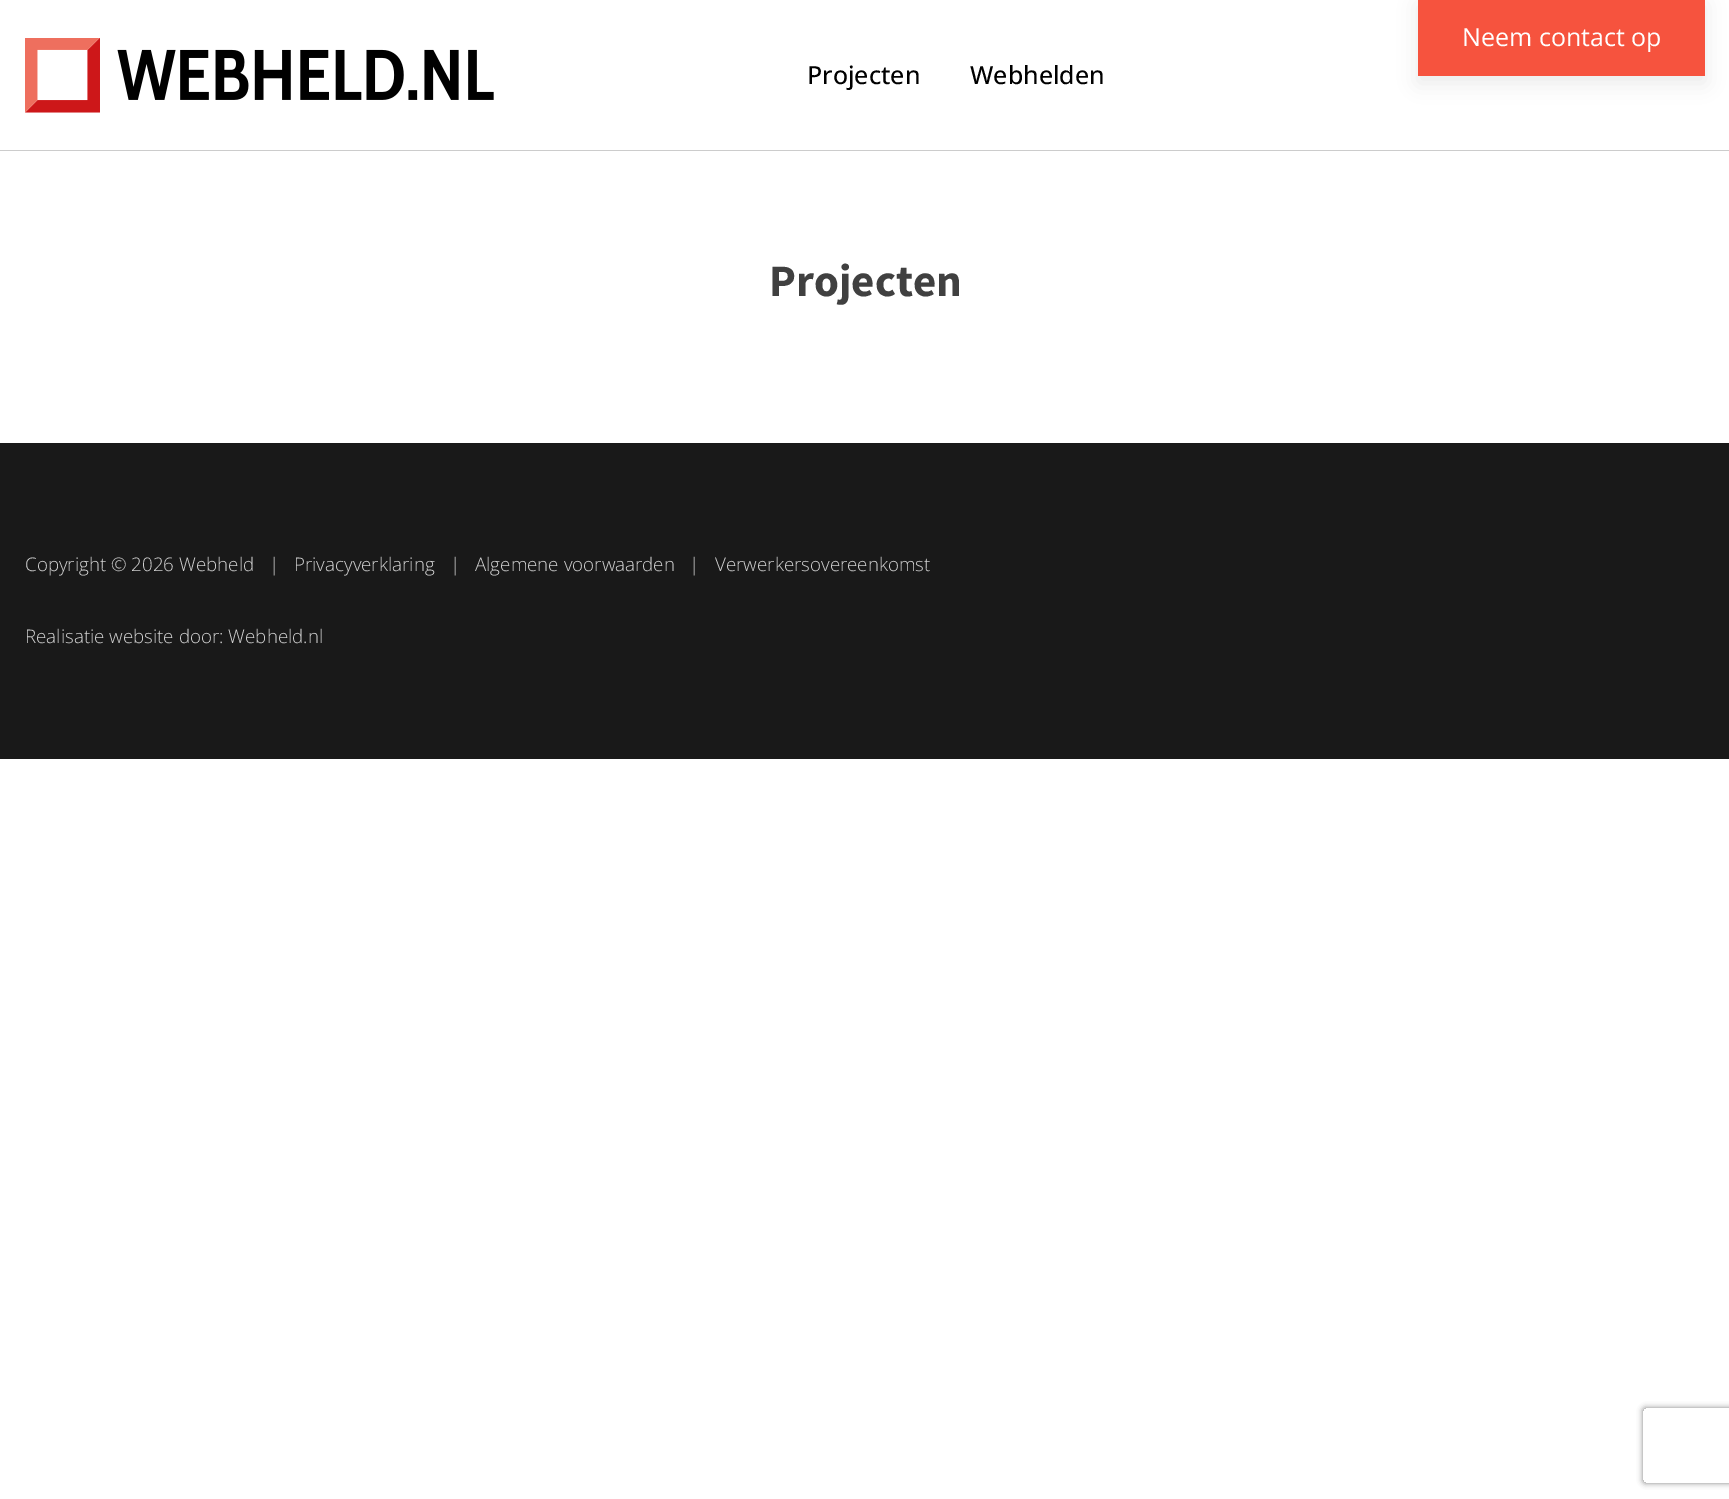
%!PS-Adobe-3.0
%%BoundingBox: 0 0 1729 1499
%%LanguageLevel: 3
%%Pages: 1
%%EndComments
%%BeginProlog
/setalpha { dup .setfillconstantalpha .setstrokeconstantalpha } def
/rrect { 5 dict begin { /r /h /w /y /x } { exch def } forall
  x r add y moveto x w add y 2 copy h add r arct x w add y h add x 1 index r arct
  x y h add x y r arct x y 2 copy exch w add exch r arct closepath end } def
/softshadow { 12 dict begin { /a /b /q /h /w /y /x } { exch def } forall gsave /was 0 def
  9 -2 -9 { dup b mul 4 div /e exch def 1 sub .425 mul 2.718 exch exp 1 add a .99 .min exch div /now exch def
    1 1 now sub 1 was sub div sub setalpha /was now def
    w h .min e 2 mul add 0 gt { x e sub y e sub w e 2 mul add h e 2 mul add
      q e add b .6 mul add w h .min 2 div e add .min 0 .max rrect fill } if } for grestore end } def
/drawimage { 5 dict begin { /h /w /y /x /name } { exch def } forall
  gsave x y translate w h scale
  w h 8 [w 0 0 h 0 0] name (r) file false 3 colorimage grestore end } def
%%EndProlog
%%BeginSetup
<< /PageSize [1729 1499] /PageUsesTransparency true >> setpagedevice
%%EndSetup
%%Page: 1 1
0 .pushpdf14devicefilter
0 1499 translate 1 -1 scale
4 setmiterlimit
1 setgray
0 0 1729 1499 rectfill
0.8 setgray
0 150 1729 1 rectfill
(images/1.raw) 25 38 469 75 drawimage
0 setgray
1418 5 287 78 0 9.5 0.08 softshadow
0.965 0.325 0.243 setrgbcolor
1418 0 287 76 rectfill
0.098 setgray
0 443 1729 316 rectfill
gsave
newpath 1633 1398 moveto 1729 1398 lineto 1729 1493 lineto 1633 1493 lineto closepath 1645.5 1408 moveto 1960.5 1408 lineto 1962 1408 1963 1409 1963 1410.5 curveto 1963 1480.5 lineto 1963 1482 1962 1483 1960.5 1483 curveto 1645.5 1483 lineto 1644 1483 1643 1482 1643 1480.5 curveto 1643 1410.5 lineto 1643 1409 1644 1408 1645.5 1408 curveto closepath eoclip newpath
0.502 setgray
1643 1408 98 75 2.5 3 1 softshadow
grestore
/OpenSans-Medium [25 0 0 -25 0 0] selectfont
0 setgray
807 84 moveto (Projecten) show
970 84 moveto (Webhelden) show
/OpenSans-Regular [25 0 0 -25 0 0] selectfont
1 setgray
1462 46 moveto (Neem contact op) show
/SourceSansPro-Bold [45 0 0 -45 0 0] selectfont
0.251 setgray
769 296 moveto (Projecten) show
/OpenSans-Light [18.75 0 0 -18.75 0 0] selectfont
0.82 setgray
25 571 moveto (Copyright © 2026 Webheld) show
269 571 moveto (|) show
294 571 moveto (Privacyverklaring) show
450 571 moveto (|) show
475 571 moveto (Algemene voorwaarden) show
689 571 moveto (|) show
715 571 moveto (Verwerkersovereenkomst) show
25 643 moveto (Realisatie website door: Webheld.nl) show
.poppdf14devicefilter showpage
%%EOF
